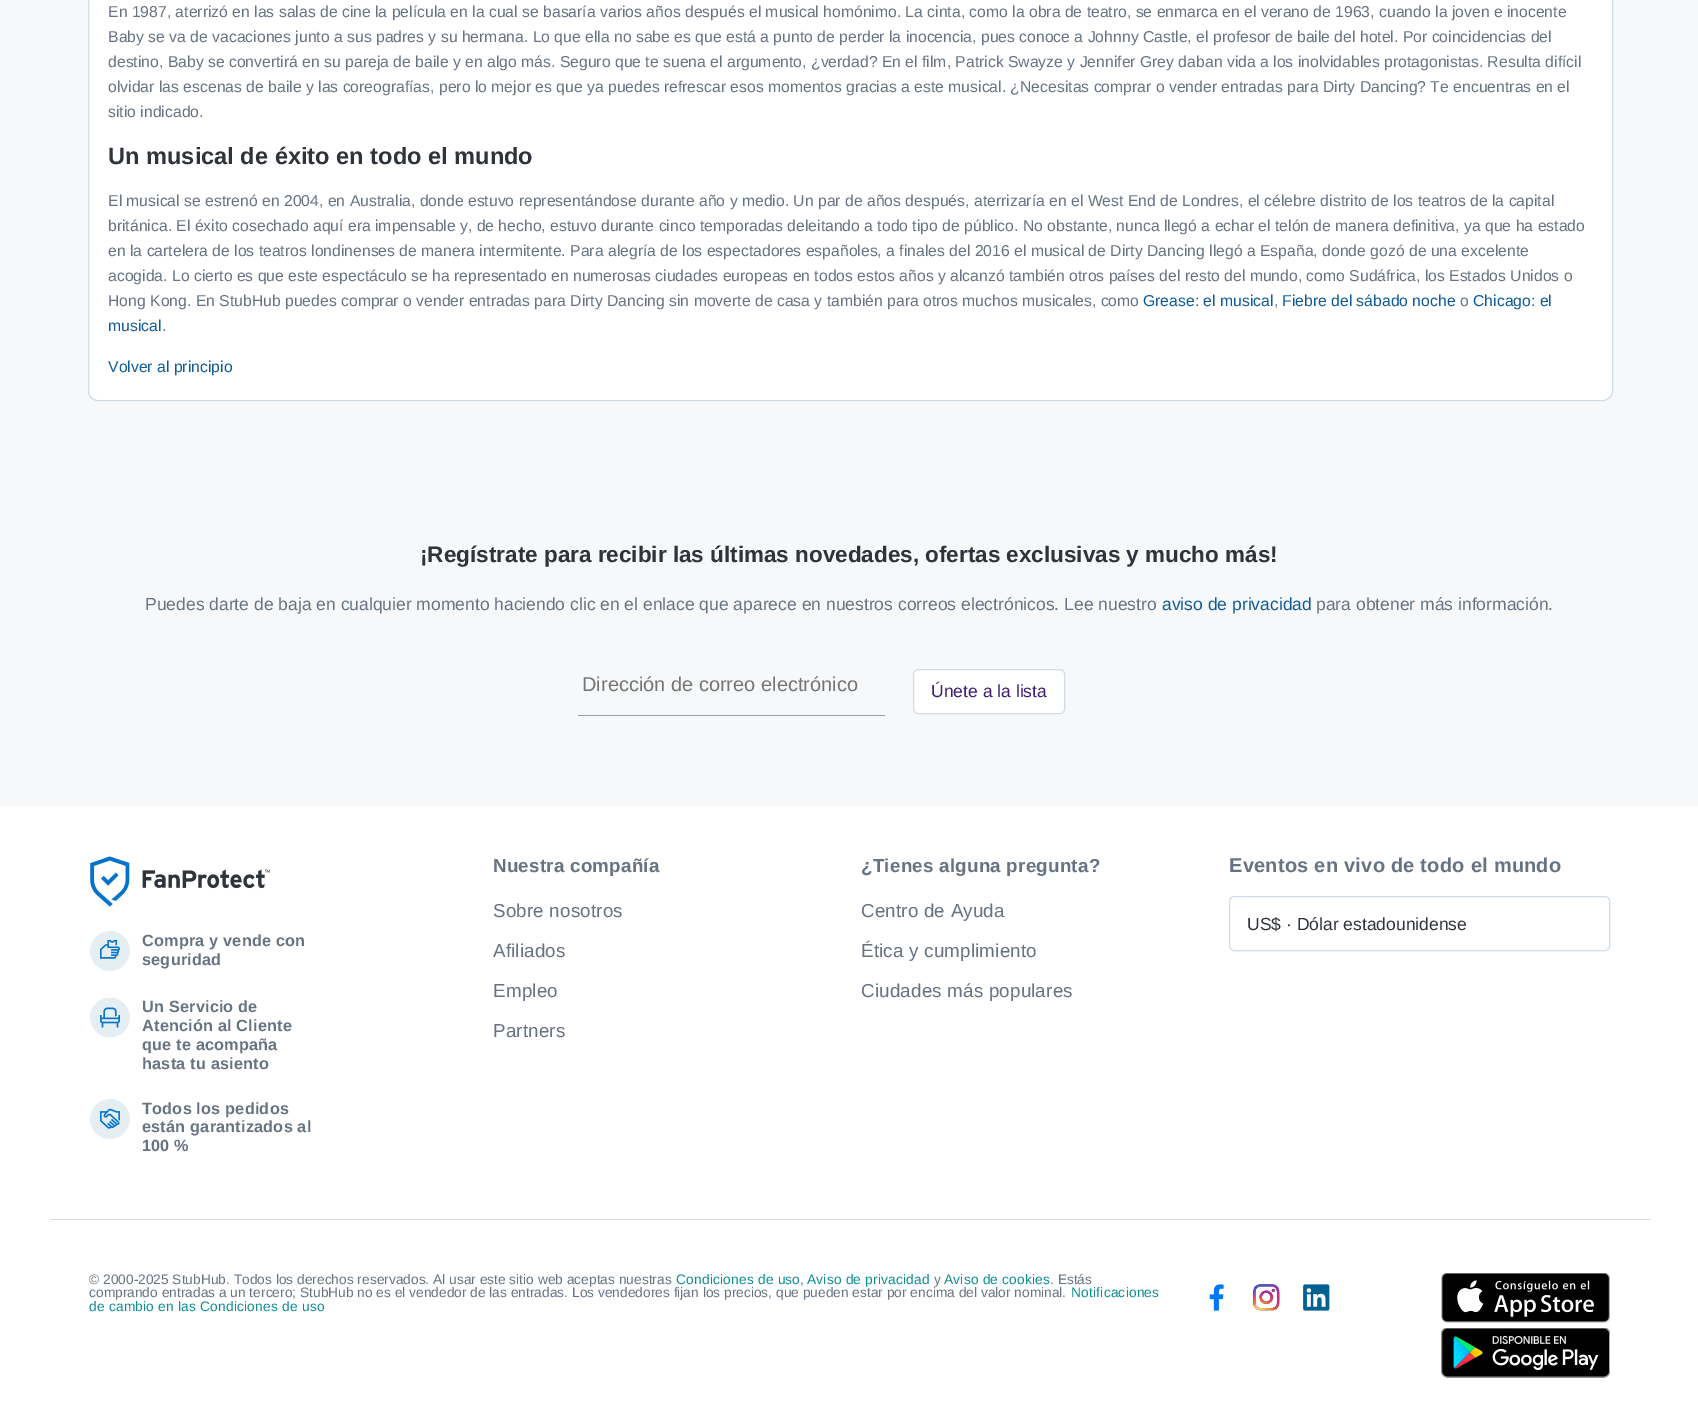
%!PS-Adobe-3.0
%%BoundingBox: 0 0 1698 1407
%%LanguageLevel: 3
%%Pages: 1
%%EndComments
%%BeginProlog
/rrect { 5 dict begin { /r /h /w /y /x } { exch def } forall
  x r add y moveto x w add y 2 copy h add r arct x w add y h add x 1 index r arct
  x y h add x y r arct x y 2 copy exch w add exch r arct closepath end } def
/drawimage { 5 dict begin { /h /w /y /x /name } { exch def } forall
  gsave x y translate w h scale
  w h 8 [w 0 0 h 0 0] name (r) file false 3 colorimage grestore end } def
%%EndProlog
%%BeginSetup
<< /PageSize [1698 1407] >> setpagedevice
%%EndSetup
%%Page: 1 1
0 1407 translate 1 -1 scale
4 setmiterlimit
0.965 0.973 0.976 setrgbcolor
0 0 1698 1407 rectfill
1 setgray
88.5 -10.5 1524 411 9.5 rrect gsave fill grestore
0.82 0.863 0.898 setrgbcolor
stroke
0.62 setgray
578 715 307 1 rectfill
1 setgray
913.5 669.5 151 44 4.5 rrect gsave fill grestore
0.82 0.863 0.898 setrgbcolor
stroke
1 setgray
0 806 1698 601 rectfill
(images/1.raw) 90 856 180 51 drawimage
(images/2.raw) 90 931 40 40 drawimage
(images/3.raw) 90 998 40 40 drawimage
(images/4.raw) 90 1099 40 40 drawimage
0.82 0.863 0.898 setrgbcolor
1229.5 896.5 380 54 4.5 rrect stroke
50 1219 1600 1 rectfill
(images/5.raw) 1209 1284 15 27 drawimage
(images/6.raw) 1253 1284 27 27 drawimage
(images/7.raw) 1303 1284 27 27 drawimage
(images/8.raw) 1441 1273 169 50 drawimage
(images/9.raw) 1441 1328 169 50 drawimage
/LiberationSans-Regular [15.75 0 0 -15.75 0 0] selectfont
0.404 0.451 0.514 setrgbcolor
108 17 moveto (En 1987, aterrizó en las salas de cine la película en la cual se basaría varios años después el musical homónimo. La cinta, como la obra de teatro, se enmarca en el verano de 1963, cuando la joven e inocente) show
108 42 moveto (Baby se va de vacaciones junto a sus padres y su hermana. Lo que ella no sabe es que está a punto de perder la inocencia, pues conoce a Johnny Castle, el profesor de baile del hotel. Por coincidencias del) show
108 67 moveto (destino, Baby se convertirá en su pareja de baile y en algo más. Seguro que te suena el argumento, ¿verdad? En el film, Patrick Swayze y Jennifer Grey daban vida a los inolvidables protagonistas. Resulta difícil) show
108 92 moveto (olvidar las escenas de baile y las coreografías, pero lo mejor es que ya puedes refrescar esos momentos gracias a este musical. ¿Necesitas comprar o vender entradas para Dirty Dancing? Te encuentras en el) show
108 117 moveto (sitio indicado.) show
/LiberationSans-Bold [23.6 0 0 -23.6 0 0] selectfont
0.184 0.204 0.231 setrgbcolor
108 164 moveto (Un musical de éxito en todo el mundo) show
/LiberationSans-Regular [15.75 0 0 -15.75 0 0] selectfont
0.404 0.451 0.514 setrgbcolor
108 206 moveto (El musical se estrenó en 2004, en Australia, donde estuvo representándose durante año y medio. Un par de años después, aterrizaría en el West End de Londres, el célebre distrito de los teatros de la capital) show
108 231 moveto (británica. El éxito cosechado aquí era impensable y, de hecho, estuvo durante cinco temporadas deleitando a todo tipo de público. No obstante, nunca llegó a echar el telón de manera definitiva, ya que ha estado) show
108 256 moveto (en la cartelera de los teatros londinenses de manera intermitente. Para alegría de los espectadores españoles, a finales del 2016 el musical de Dirty Dancing llegó a España, donde gozó de una excelente) show
108 281 moveto (acogida. Lo cierto es que este espectáculo se ha representado en numerosas ciudades europeas en todos estos años y alcanzó también otros países del resto del mundo, como Sudáfrica, los Estados Unidos o) show
108 306 moveto (Hong Kong. En StubHub puedes comprar o vender entradas para Dirty Dancing sin moverte de casa y también para otros muchos musicales, como) show
0.059 0.357 0.6 setrgbcolor
1143 306 moveto (Grease: el musical) show
0.404 0.451 0.514 setrgbcolor
1274 306 moveto (,) show
0.059 0.357 0.6 setrgbcolor
1282 306 moveto (Fiebre del sábado noche) show
0.404 0.451 0.514 setrgbcolor
1460 306 moveto (o) show
0.059 0.357 0.6 setrgbcolor
1473 306 moveto (Chicago: el) show
108 331 moveto (musical) show
0.404 0.451 0.514 setrgbcolor
162 331 moveto (.) show
0.059 0.357 0.6 setrgbcolor
108 372 moveto (Volver al principio) show
/LiberationSans-Bold [22.5 0 0 -22.5 0 0] selectfont
0.184 0.204 0.231 setrgbcolor
420 562 moveto (¡Regístrate para recibir las últimas novedades, ofertas exclusivas y mucho más!) show
/LiberationSans-Regular [17.5 0 0 -17.5 0 0] selectfont
0.404 0.451 0.514 setrgbcolor
145 610 moveto (Puedes darte de baja en cualquier momento haciendo clic en el enlace que aparece en nuestros correos electrónicos. Lee nuestro) show
0.059 0.357 0.6 setrgbcolor
1162 610 moveto (aviso de privacidad) show
0.404 0.451 0.514 setrgbcolor
1316 610 moveto (para obtener más información.) show
/LiberationSans-Regular [20 0 0 -20 0 0] selectfont
0.459 setgray
582 691 moveto (Dirección de correo electrónico) show
/LiberationSans-Regular [17.5 0 0 -17.5 0 0] selectfont
0.247 0.114 0.459 setrgbcolor
931 697 moveto (Únete a la lista) show
/LiberationSans-Bold [16.25 0 0 -16.25 0 0] selectfont
0.404 0.451 0.514 setrgbcolor
142 946 moveto 0.2 0 (Compra y vende con) ashow
142 965 moveto 0.2 0 (seguridad) ashow
142 1012 moveto 0.2 0 (Un Servicio de) ashow
142 1031 moveto 0.2 0 (Atención al Cliente) ashow
142 1050 moveto 0.2 0 (que te acompaña) ashow
142 1069 moveto 0.2 0 (hasta tu asiento) ashow
142 1114 moveto 0.2 0 (Todos los pedidos) ashow
142 1132 moveto 0.2 0 (están garantizados al) ashow
142 1151 moveto 0.2 0 (100 %) ashow
/LiberationSans-Bold [18.75 0 0 -18.75 0 0] selectfont
493 872 moveto 0.25 0 (Nuestra compañía) ashow
/LiberationSans-Regular [18.75 0 0 -18.75 0 0] selectfont
493 917 moveto 0.2 0 (Sobre nosotros) ashow
493 957 moveto 0.2 0 (Afiliados) ashow
493 997 moveto 0.2 0 (Empleo) ashow
493 1037 moveto 0.2 0 (Partners) ashow
/LiberationSans-Bold [18.75 0 0 -18.75 0 0] selectfont
861 872 moveto 0.25 0 (¿Tienes alguna pregunta?) ashow
/LiberationSans-Regular [18.75 0 0 -18.75 0 0] selectfont
861 917 moveto 0.2 0 (Centro de Ayuda) ashow
861 957 moveto 0.2 0 (Ética y cumplimiento) ashow
861 997 moveto 0.2 0 (Ciudades más populares) ashow
/LiberationSans-Bold [20 0 0 -20 0 0] selectfont
1229 872 moveto 0.25 0 (Eventos en vivo de todo el mundo) ashow
/LiberationSans-Regular [17.5 0 0 -17.5 0 0] selectfont
0.184 0.204 0.231 setrgbcolor
1247 930 moveto (US$ · Dólar estadounidense) show
/LiberationSans-Regular [13.75 0 0 -13.75 0 0] selectfont
0.404 0.451 0.514 setrgbcolor
89 1284 moveto (© 2000-2025 StubHub. Todos los derechos reservados. Al usar este sitio web aceptas nuestras) show
0.055 0.553 0.576 setrgbcolor
676 1284 moveto 0.2 0 (Condiciones de uso) ashow
0.404 0.451 0.514 setrgbcolor
800 1284 moveto (,) show
0.055 0.553 0.576 setrgbcolor
807 1284 moveto 0.2 0 (Aviso de privacidad) ashow
0.404 0.451 0.514 setrgbcolor
934 1284 moveto (y) show
0.055 0.553 0.576 setrgbcolor
944 1284 moveto 0.2 0 (Aviso de cookies) ashow
0.404 0.451 0.514 setrgbcolor
1050 1284 moveto (. Estás) show
89 1297 moveto (comprando entradas a un tercero; StubHub no es el vendedor de las entradas. Los vendedores fijan los precios, que pueden estar por encima del valor nominal.) show
0.055 0.553 0.576 setrgbcolor
1071 1297 moveto 0.2 0 (Notificaciones) ashow
89 1311 moveto 0.2 0 (de cambio en las Condiciones de uso) ashow
showpage
%%EOF
